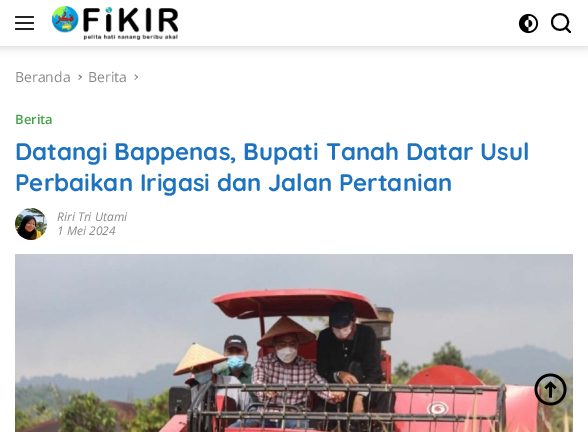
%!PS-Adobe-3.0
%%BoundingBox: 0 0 588 432
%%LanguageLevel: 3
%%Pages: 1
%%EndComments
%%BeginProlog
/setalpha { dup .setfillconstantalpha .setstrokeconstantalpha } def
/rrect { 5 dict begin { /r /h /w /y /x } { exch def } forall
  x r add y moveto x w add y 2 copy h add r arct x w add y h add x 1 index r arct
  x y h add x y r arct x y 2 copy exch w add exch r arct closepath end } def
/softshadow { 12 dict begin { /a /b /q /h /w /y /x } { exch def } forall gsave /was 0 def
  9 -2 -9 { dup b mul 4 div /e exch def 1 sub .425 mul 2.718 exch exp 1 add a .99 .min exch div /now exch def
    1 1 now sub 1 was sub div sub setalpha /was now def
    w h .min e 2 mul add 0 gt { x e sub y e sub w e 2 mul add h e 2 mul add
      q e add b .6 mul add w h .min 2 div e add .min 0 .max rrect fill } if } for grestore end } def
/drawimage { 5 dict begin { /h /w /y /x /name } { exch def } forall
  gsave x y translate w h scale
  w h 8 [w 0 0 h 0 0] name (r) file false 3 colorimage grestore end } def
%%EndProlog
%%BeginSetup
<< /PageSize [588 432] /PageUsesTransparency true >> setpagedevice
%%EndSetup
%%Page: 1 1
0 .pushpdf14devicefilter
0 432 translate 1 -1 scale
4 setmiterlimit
1 setgray
0 0 588 432 rectfill
0 setgray
0 0 588 46 0 5 0.2 softshadow
1 setgray
0 0 588 46 rectfill
0.133 setgray
15 16 19 2 1 rrect fill
15 22 19 2 1 rrect fill
15 28 19 2 1 rrect fill
(images/1.raw) 52 6 126 34 drawimage
(images/2.raw) 518 13 21 21 drawimage
0 setgray
1.9 setlinewidth
1 setlinecap
newpath 570 32 moveto 566 28 lineto 568 22 moveto 568 32.5 552 32.5 552 22 curveto 552 11.5 568 11.5 568 22 curveto closepath stroke
0.533 setgray
newpath 78.5 75 moveto 79 74.5 lineto 82 77 lineto 81 78 lineto closepath fill
newpath 78.5 79.5 moveto 81 76.5 lineto 82 77 lineto 79 80 lineto closepath 134.5 75 moveto 135 74.5 lineto 138 77 lineto 137.5 78 lineto closepath fill
newpath 134.5 79.5 moveto 137.5 76.5 lineto 138 77 lineto 135 80 lineto closepath fill
(images/3.raw) 15 208 32 32 drawimage
(images/4.raw) 15 254 558 178 drawimage
(images/5.raw) 534 373 33 33 drawimage
/OpenSans-Regular [14 0 0 -14 0 0] selectfont
15 82 moveto (Beranda) show
88 82 moveto (Berita) show
/OpenSans-SemiBold [13 0 0 -13 0 0] selectfont
0.263 0.627 0.278 setrgbcolor
15 124 moveto (Berita) show
/Quicksand-Bold [24 0 0 -24 0 0] selectfont
0.118 0.451 0.745 setrgbcolor
15 160 moveto (Datangi Bappenas, Bupati Tanah Datar Usul) show
15 191 moveto (Perbaikan Irigasi dan Jalan Pertanian) show
/OpenSans-Italic [12 0 0 -12 0 0] selectfont
0.533 setgray
57 221 moveto (Riri Tri Utami) show
57 235 moveto (1 Mei 2024) show
.poppdf14devicefilter showpage
%%EOF
